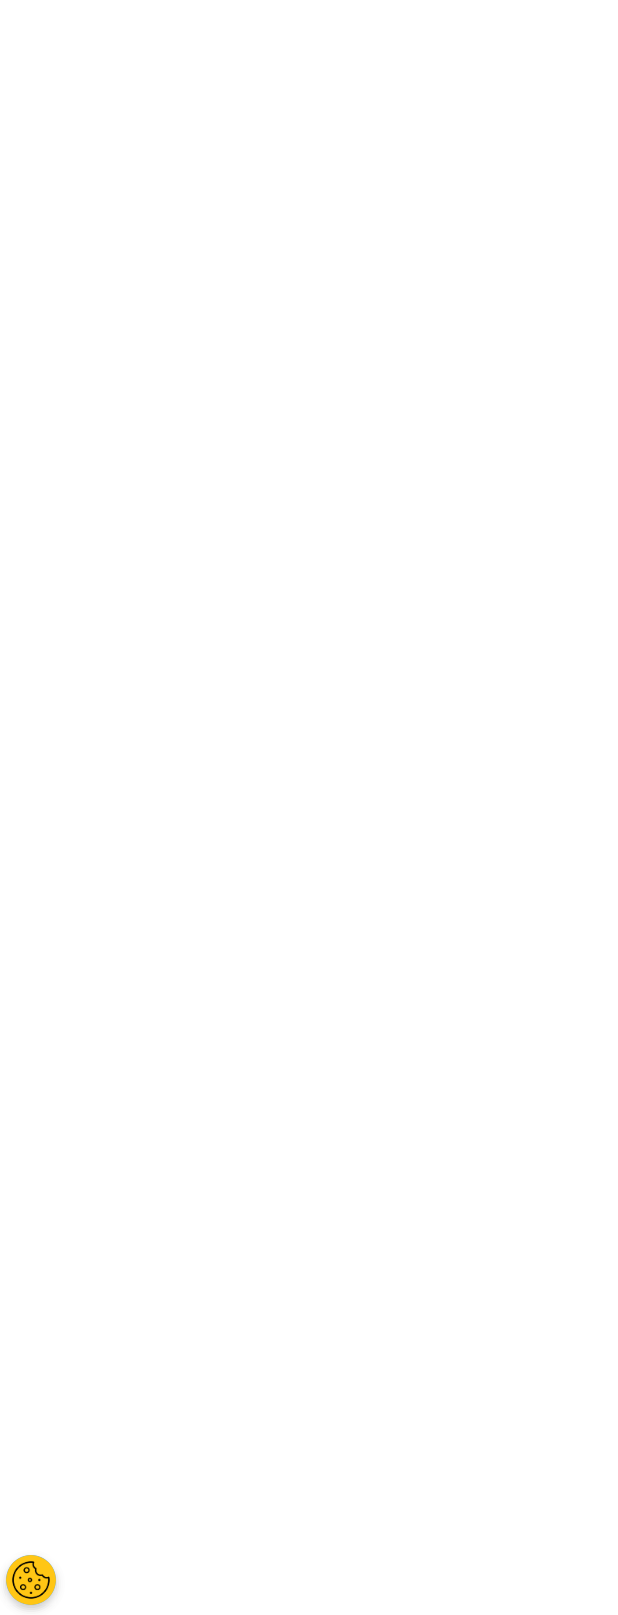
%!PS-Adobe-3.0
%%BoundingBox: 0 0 618 1615
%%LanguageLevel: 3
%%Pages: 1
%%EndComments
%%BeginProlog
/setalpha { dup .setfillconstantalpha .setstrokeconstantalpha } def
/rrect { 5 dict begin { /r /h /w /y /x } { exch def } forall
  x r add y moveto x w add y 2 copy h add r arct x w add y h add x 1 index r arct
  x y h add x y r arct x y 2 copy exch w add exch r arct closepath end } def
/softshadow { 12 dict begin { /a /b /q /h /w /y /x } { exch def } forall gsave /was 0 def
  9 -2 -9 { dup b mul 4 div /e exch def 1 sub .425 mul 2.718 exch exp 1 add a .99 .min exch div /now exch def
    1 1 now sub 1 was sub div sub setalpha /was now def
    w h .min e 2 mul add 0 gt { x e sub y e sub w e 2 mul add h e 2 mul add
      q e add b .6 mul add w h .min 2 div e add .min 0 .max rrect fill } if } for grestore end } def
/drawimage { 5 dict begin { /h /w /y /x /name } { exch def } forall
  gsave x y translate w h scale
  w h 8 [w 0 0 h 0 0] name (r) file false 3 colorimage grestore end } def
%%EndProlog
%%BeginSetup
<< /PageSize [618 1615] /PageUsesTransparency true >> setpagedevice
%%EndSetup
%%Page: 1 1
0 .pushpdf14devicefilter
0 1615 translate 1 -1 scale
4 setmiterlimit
1 setgray
0 0 618 1615 rectfill
0 setgray
6 1559 50 50 25 4 0.2 softshadow
0.416 0.667 0.894 setrgbcolor
newpath 31 1580 25 0 360 arc closepath fill
(images/1.raw) 6 1555 50 50 drawimage
.poppdf14devicefilter showpage
%%EOF
